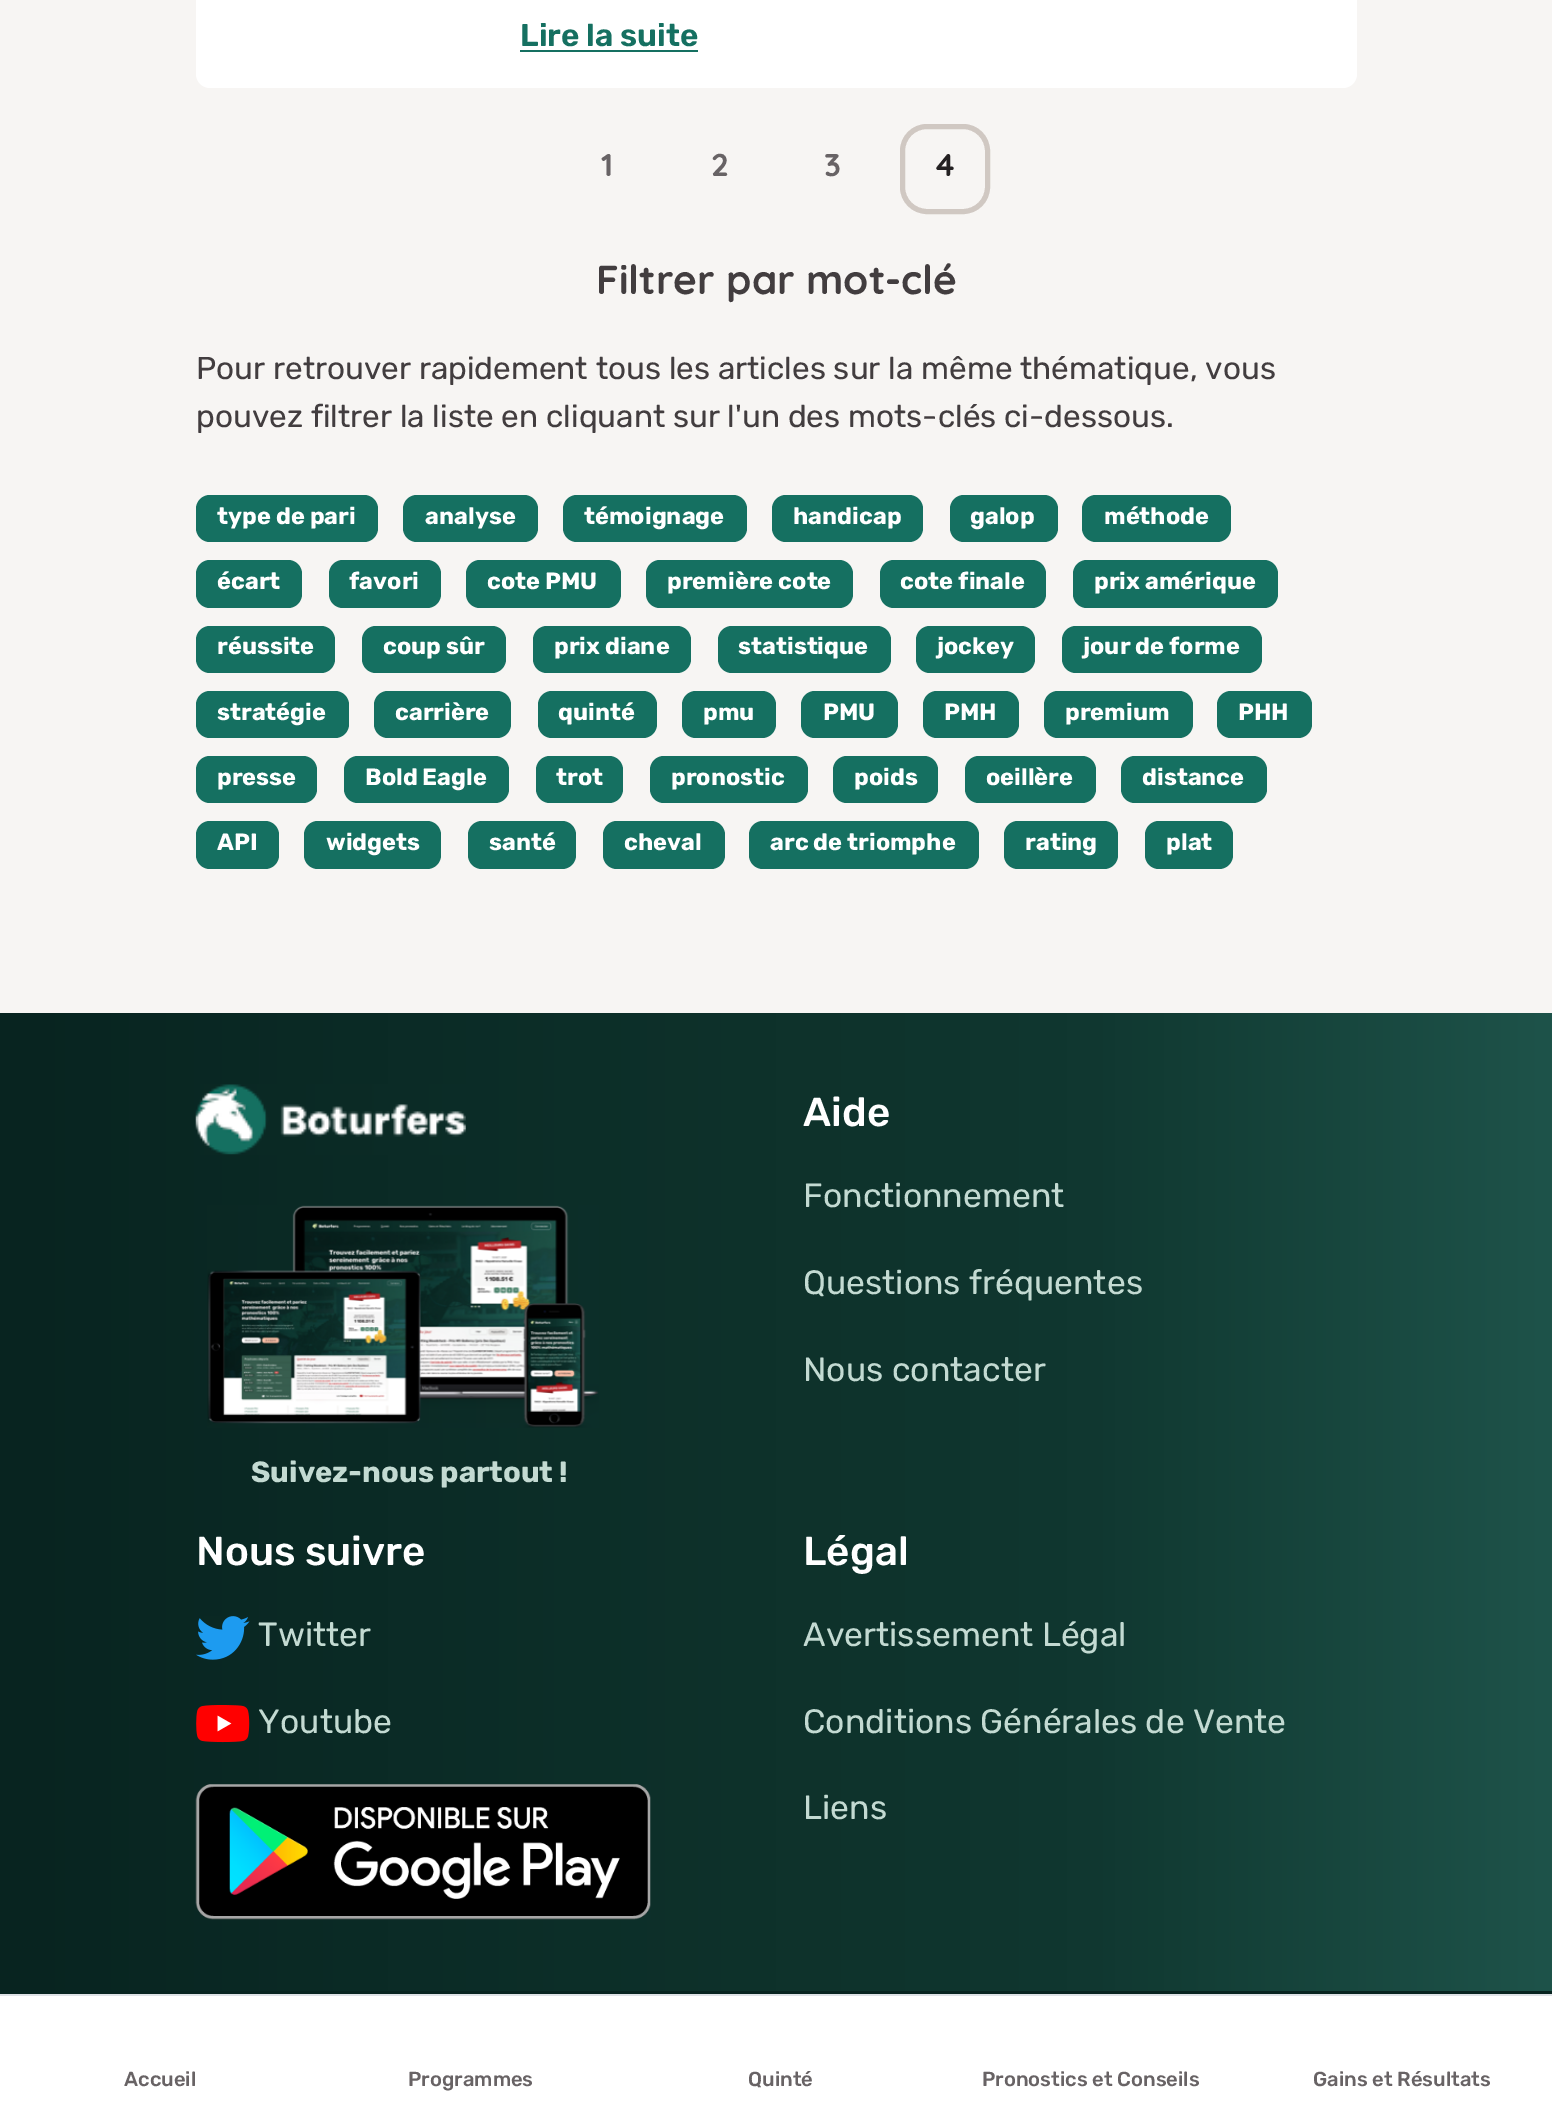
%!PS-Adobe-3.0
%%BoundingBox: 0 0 1552 2110
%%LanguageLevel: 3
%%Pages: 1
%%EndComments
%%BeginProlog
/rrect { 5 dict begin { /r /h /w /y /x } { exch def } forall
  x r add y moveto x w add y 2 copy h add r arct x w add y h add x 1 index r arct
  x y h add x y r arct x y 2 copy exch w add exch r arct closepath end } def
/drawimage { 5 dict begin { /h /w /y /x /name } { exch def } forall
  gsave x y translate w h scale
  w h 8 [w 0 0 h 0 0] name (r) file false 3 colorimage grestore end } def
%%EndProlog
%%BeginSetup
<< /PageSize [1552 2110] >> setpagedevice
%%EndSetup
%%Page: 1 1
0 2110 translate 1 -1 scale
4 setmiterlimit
0.969 0.961 0.953 setrgbcolor
0 0 1552 2110 rectfill
1 setgray
196 -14 1161 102 14 rrect fill
0.082 0.439 0.38 setrgbcolor
520 50 178 2 rectfill
0.816 0.784 0.761 setrgbcolor
5 setlinewidth
902.5 126.5 85 85 24.5 rrect stroke
0.082 0.439 0.38 setrgbcolor
196 495 182 47 14 rrect fill
403 495 135 47 14 rrect fill
563 495 184 47 14 rrect fill
772 495 151 47 14 rrect fill
950 495 108 47 14 rrect fill
1082 495 149 47 14 rrect fill
196 560 106 48 14 rrect fill
329 560 112 48 14 rrect fill
466 560 155 48 14 rrect fill
646 560 207 48 14 rrect fill
880 560 166 48 14 rrect fill
1073 560 205 48 14 rrect fill
196 626 139 47 14 rrect fill
362 626 144 47 14 rrect fill
533 626 158 47 14 rrect fill
718 626 173 47 14 rrect fill
916 626 119 47 14 rrect fill
1062 626 200 47 14 rrect fill
196 691 153 47 14 rrect fill
374 691 137 47 14 rrect fill
538 691 119 47 14 rrect fill
682 691 94 47 14 rrect fill
801 691 97 47 14 rrect fill
923 691 96 47 14 rrect fill
1044 691 149 47 14 rrect fill
1217 691 95 47 14 rrect fill
196 756 121 47 14 rrect fill
344 756 165 47 14 rrect fill
536 756 87 47 14 rrect fill
650 756 158 47 14 rrect fill
833 756 105 47 14 rrect fill
965 756 131 47 14 rrect fill
1121 756 146 47 14 rrect fill
196 821 83 48 14 rrect fill
304 821 137 48 14 rrect fill
468 821 108 48 14 rrect fill
603 821 122 48 14 rrect fill
749 821 230 48 14 rrect fill
1004 821 114 48 14 rrect fill
1145 821 88 48 14 rrect fill
gsave newpath 0 1013 moveto 1552 1013 lineto 1552 1991 lineto 0 1991 lineto closepath clip newpath
<< /ShadingType 2 /ColorSpace /DeviceRGB /Coords [0 1585 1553 1585] /Extend [true true] /Function << /FunctionType 3 /Domain [0 1] /Functions [<< /FunctionType 2 /Domain [0 1] /C0 [0.031 0.141 0.125] /C1 [0.063 0.216 0.188] /N 1 >> << /FunctionType 2 /Domain [0 1] /C0 [0.063 0.216 0.188] /C1 [0.118 0.325 0.29] /N 1 >>] /Bounds [0.7] /Encode [0 1 0 1] >> >> shfill grestore
(images/1.raw) 195 1084 271 71 drawimage
(images/2.raw) 207 1205 392 223 drawimage
(images/3.raw) 196 1616 54 44 drawimage
(images/4.raw) 196 1705 54 38 drawimage
(images/5.raw) 195 1784 456 136 drawimage
0.031 0.141 0.125 setrgbcolor
0 1991 1552 3 rectfill
1 setgray
0 1996 1552 114 rectfill
0.871 0.886 0.902 setrgbcolor
0 1994 1552 2 rectfill
/Rubik-SemiBold [31.5 0 0 -31.5 0 0] selectfont
0.082 0.439 0.38 setrgbcolor
520 46 moveto (Lire la suite) show
/Quicksand-Bold [31.5 0 0 -31.5 0 0] selectfont
0.408 0.388 0.396 setrgbcolor
601 176 moveto (1) show
711 176 moveto (2) show
824 176 moveto (3) show
0.141 0.129 0.133 setrgbcolor
936 176 moveto (4) show
/Quicksand-Bold [40.5 0 0 -40.5 0 0] selectfont
0.259 0.239 0.247 setrgbcolor
596 294 moveto (Filtrer par mot-clé) show
/Rubik-Regular [31.5 0 0 -31.5 0 0] selectfont
196 379 moveto (Pour retrouver rapidement tous les articles sur la même thématique, vous) show
196 427 moveto (pouvez filtrer la liste en cliquant sur l'un des mots-clés ci-dessous.) show
/Rubik-Bold [23.5 0 0 -23.5 0 0] selectfont
1 setgray
217 524 moveto (type de pari) show
425 524 moveto (analyse) show
584 524 moveto (témoignage) show
793 524 moveto (handicap) show
970 524 moveto (galop) show
1104 524 moveto (méthode) show
217 589 moveto (écart) show
349 589 moveto (favori) show
487 589 moveto (cote PMU) show
667 589 moveto (première cote) show
900 589 moveto (cote finale) show
1094 589 moveto (prix amérique) show
217 654 moveto (réussite) show
383 654 moveto (coup sûr) show
554 654 moveto (prix diane) show
738 654 moveto (statistique) show
937 654 moveto (jockey) show
1083 654 moveto (jour de forme) show
217 720 moveto (stratégie) show
395 720 moveto (carrière) show
558 720 moveto (quinté) show
703 720 moveto (pmu) show
823 720 moveto (PMU) show
944 720 moveto (PMH) show
1065 720 moveto (premium) show
1238 720 moveto (PHH) show
217 785 moveto (presse) show
365 785 moveto (Bold Eagle) show
556 785 moveto (trot) show
671 785 moveto (pronostic) show
854 785 moveto (poids) show
986 785 moveto (oeillère) show
1142 785 moveto (distance) show
217 850 moveto (API) show
326 850 moveto (widgets) show
489 850 moveto (santé) show
624 850 moveto (cheval) show
770 850 moveto (arc de triomphe) show
1025 850 moveto (rating) show
1166 850 moveto (plat) show
/Rubik-Medium [40.5 0 0 -40.5 0 0] selectfont
803 1126 moveto (Aide) show
/Rubik-Regular [33.75 0 0 -33.75 0 0] selectfont
0.765 0.855 0.824 setrgbcolor
803 1207 moveto (Fonctionnement) show
803 1294 moveto (Questions fréquentes) show
803 1381 moveto (Nous contacter) show
/Rubik-Bold [29.25 0 0 -29.25 0 0] selectfont
251 1482 moveto (Suivez-nous partout !) show
/Rubik-Medium [40.5 0 0 -40.5 0 0] selectfont
1 setgray
196 1565 moveto (Nous suivre) show
/Rubik-Regular [33.75 0 0 -33.75 0 0] selectfont
0.765 0.855 0.824 setrgbcolor
258 1646 moveto (Twitter) show
258 1733 moveto (Youtube) show
/Rubik-Medium [40.5 0 0 -40.5 0 0] selectfont
1 setgray
803 1565 moveto (Légal) show
/Rubik-Regular [33.75 0 0 -33.75 0 0] selectfont
0.765 0.855 0.824 setrgbcolor
803 1646 moveto (Avertissement Légal) show
803 1733 moveto (Conditions Générales de Vente) show
803 1819 moveto (Liens) show
/Rubik-Medium [20.25 0 0 -20.25 0 0] selectfont
0.408 0.388 0.396 setrgbcolor
124 2086 moveto (Accueil) show
408 2086 moveto (Programmes) show
748 2086 moveto (Quinté) show
982 2086 moveto (Pronostics et Conseils) show
1313 2086 moveto (Gains et Résultats) show
showpage
%%EOF
